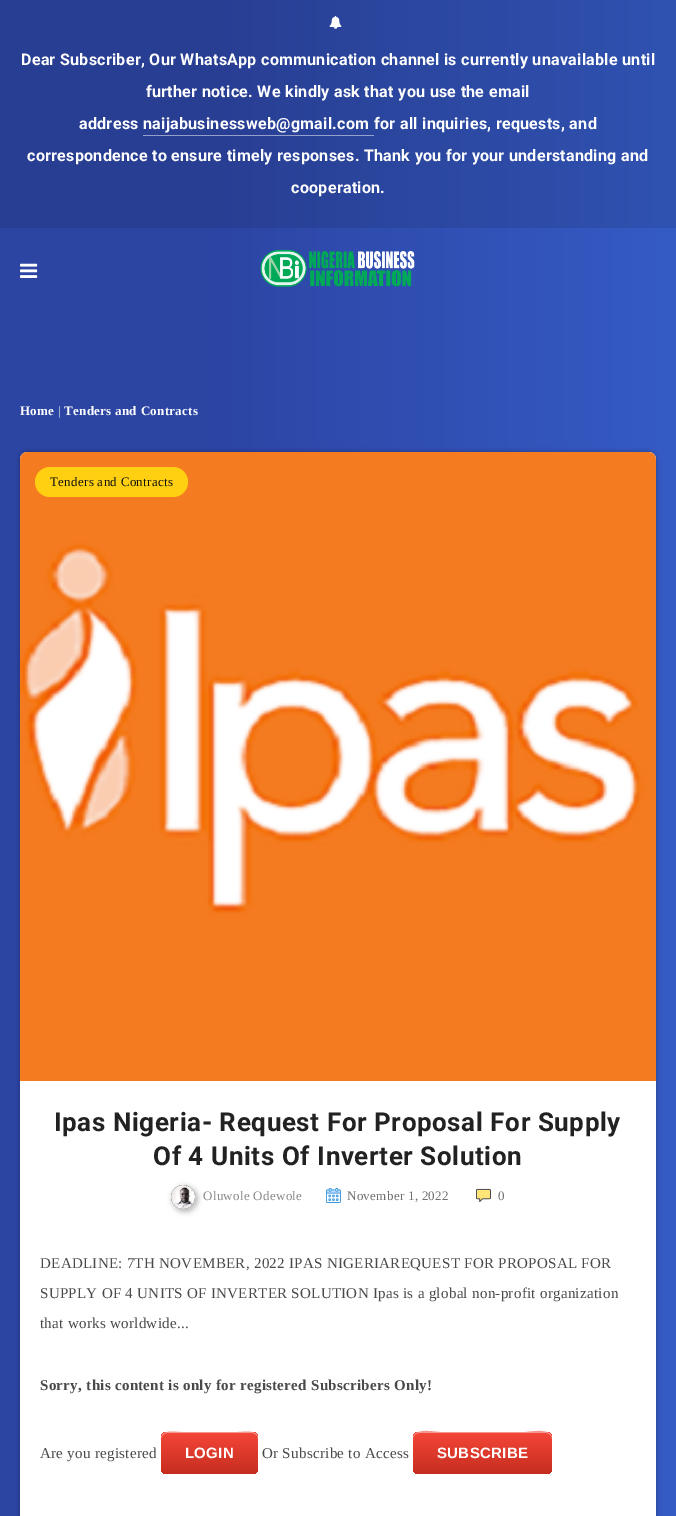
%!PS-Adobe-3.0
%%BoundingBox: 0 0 676 1516
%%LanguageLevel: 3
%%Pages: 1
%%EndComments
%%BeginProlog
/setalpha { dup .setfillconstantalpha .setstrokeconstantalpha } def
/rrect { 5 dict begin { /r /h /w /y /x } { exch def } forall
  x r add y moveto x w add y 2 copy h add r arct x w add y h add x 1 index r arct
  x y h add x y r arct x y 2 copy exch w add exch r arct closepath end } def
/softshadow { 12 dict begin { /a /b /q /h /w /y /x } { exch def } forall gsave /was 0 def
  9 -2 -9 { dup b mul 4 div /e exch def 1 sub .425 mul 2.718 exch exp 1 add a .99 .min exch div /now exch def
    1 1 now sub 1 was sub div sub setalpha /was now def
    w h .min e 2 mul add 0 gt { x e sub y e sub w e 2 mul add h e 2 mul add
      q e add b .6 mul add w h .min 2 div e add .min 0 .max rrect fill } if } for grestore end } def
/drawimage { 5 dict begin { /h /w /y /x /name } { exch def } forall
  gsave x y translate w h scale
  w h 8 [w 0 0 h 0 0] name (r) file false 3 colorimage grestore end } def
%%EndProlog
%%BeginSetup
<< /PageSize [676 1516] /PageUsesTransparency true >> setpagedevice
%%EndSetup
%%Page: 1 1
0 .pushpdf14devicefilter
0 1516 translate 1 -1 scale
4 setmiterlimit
1 setgray
0 0 676 1516 rectfill
gsave newpath 0 228 moveto 676 228 lineto 676 1516 lineto 0 1516 lineto closepath clip newpath
<< /ShadingType 2 /ColorSpace /DeviceRGB /Coords [0 758 676 758] /Extend [true true] /Function << /FunctionType 3 /Domain [0 1] /Functions [<< /FunctionType 2 /Domain [0 1] /C0 [0.173 0.271 0.639] /C1 [0.173 0.271 0.639] /N 1 >> << /FunctionType 2 /Domain [0 1] /C0 [0.173 0.271 0.639] /C1 [0.208 0.357 0.773] /N 1 >>] /Bounds [0.3] /Encode [0 1 0 1] >> >> shfill grestore
gsave newpath 0 0 moveto 676 0 lineto 676 228 lineto 0 228 lineto closepath clip newpath
<< /ShadingType 2 /ColorSpace /DeviceRGB /Coords [0 758 676 758] /Extend [true true] /Function << /FunctionType 3 /Domain [0 1] /Functions [<< /FunctionType 2 /Domain [0 1] /C0 [0.157 0.243 0.576] /C1 [0.157 0.243 0.576] /N 1 >> << /FunctionType 2 /Domain [0 1] /C0 [0.157 0.243 0.576] /C1 [0.188 0.322 0.694] /N 1 >>] /Bounds [0.3] /Encode [0 1 0 1] >> >> shfill grestore
gsave newpath 143 135 moveto 374 135 lineto 374 136 lineto 143 136 lineto closepath clip newpath
<< /ShadingType 2 /ColorSpace /DeviceRGB /Coords [0 758 676 758] /Extend [true true] /Function << /FunctionType 3 /Domain [0 1] /Functions [<< /FunctionType 2 /Domain [0 1] /C0 [0.58 0.624 0.788] /C1 [0.58 0.624 0.788] /N 1 >> << /FunctionType 2 /Domain [0 1] /C0 [0.58 0.624 0.788] /C1 [0.596 0.663 0.847] /N 1 >>] /Bounds [0.3] /Encode [0 1 0 1] >> >> shfill grestore
(images/1.raw) 329 15 13 14 drawimage
(images/2.raw) 20 263 18 15 drawimage
(images/3.raw) 260 249 155 38 drawimage
0 setgray
20 452 636 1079 7 2.5 0.3 softshadow
1 setgray
20 452 636 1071 7 rrect fill
(images/4.raw) 20 452 636 629 drawimage
1 0.816 0.071 setrgbcolor
35 467 153 30 15 rrect fill
0 setgray
172 1186 26 26 13 2.5 0.25 softshadow
(images/5.raw) 171 1185 24 24 drawimage
(images/6.raw) 326 1188 15 15 drawimage
(images/7.raw) 476 1188 15 14 drawimage
gsave 161 1432 97 42 6 rrect clip newpath
<< /ShadingType 2 /ColorSpace /DeviceRGB /Coords [210 1432 210 1474] /Extend [true true] /Function << /FunctionType 3 /Domain [0 1] /Functions [<< /FunctionType 2 /Domain [0 1] /C0 [0.949 0.271 0.216] /C1 [0.949 0.271 0.216] /N 1 >> << /FunctionType 2 /Domain [0 1] /C0 [0.949 0.271 0.216] /C1 [0.776 0.176 0.122] /N 1 >>] /Bounds [0.05] /Encode [0 1 0 1] >> >> shfill grestore
0.961 0.592 0.557 setrgbcolor
newpath 167 1433 moveto 252 1433 lineto 255 1433 258 1436 258 1439 curveto 258 1429 244 1432 238 1432 curveto 181 1432 lineto 175 1432 161 1429 161 1439 curveto 161 1436 164 1433 167 1433 curveto closepath fill
gsave 413 1432 139 42 6 rrect clip newpath
<< /ShadingType 2 /ColorSpace /DeviceRGB /Coords [483 1432 483 1474] /Extend [true true] /Function << /FunctionType 3 /Domain [0 1] /Functions [<< /FunctionType 2 /Domain [0 1] /C0 [0.949 0.271 0.216] /C1 [0.949 0.271 0.216] /N 1 >> << /FunctionType 2 /Domain [0 1] /C0 [0.949 0.271 0.216] /C1 [0.776 0.176 0.122] /N 1 >>] /Bounds [0.05] /Encode [0 1 0 1] >> >> shfill grestore
newpath 419 1433 moveto 546 1433 lineto 549 1433 552 1436 552 1439 curveto 552 1427 530 1432 525 1432 curveto 440 1432 lineto 435 1432 413 1427 413 1439 curveto 413 1436 416 1433 419 1433 curveto closepath fill
/Roboto-Bold [16 0 0 -16 0 0] selectfont
1 setgray
21 65 moveto 0.3 0 (Dear Subscriber, Our WhatsApp communication channel is currently unavailable until) ashow
146 97 moveto 0.3 0 (further notice. We kindly ask that you use the email) ashow
79 129 moveto 0.3 0 (address naijabusinessweb@gmail.com) ashow
374 129 moveto 0.3 0 (for all inquiries, requests, and) ashow
27 161 moveto 0.3 0 (correspondence to ensure timely responses. Thank you for your understanding and) ashow
291 193 moveto 0.3 0 (cooperation.) ashow
/LiberationSerif-Bold [13 0 0 -13 0 0] selectfont
20 415 moveto 0.3 0 (Home) ashow
/LiberationSerif-Regular [13 0 0 -13 0 0] selectfont
58 415 moveto 0.3 0 (|) ashow
/LiberationSerif-Bold [13 0 0 -13 0 0] selectfont
64 415 moveto 0.3 0 (Tenders and Contracts) ashow
/LiberationSerif-Regular [13 0 0 -13 0 0] selectfont
0.067 setgray
50 486 moveto 0.3 0 (Tenders and Contracts) ashow
/Roboto-Bold [26 0 0 -26 0 0] selectfont
0.133 setgray
54 1131 moveto 0.6 0 (Ipas Nigeria- Request For Proposal For Supply) ashow
153 1165 moveto 0.6 0 (Of 4 Units Of Inverter Solution) ashow
/LiberationSerif-Regular [13 0 0 -13 0 0] selectfont
0.537 setgray
203 1200 moveto 0.3 0 (Oluwole Odewole) ashow
0.435 setgray
347 1200 moveto 0.3 0 (November 1, 2022) ashow
498 1200 moveto 0.3 0 (0) ashow
/LiberationSerif-Regular [15 0 0 -15 0 0] selectfont
0.286 setgray
40 1268 moveto 0.3 0 (DEADLINE: 7TH NOVEMBER, 2022 IPAS NIGERIAREQUEST FOR PROPOSAL FOR) ashow
40 1298 moveto 0.3 0 (SUPPLY OF 4 UNITS OF INVERTER SOLUTION Ipas is a global non-profit organization) ashow
40 1328 moveto 0.3 0 (that works worldwide...) ashow
/LiberationSerif-Bold [15 0 0 -15 0 0] selectfont
40 1390 moveto 0.3 0 (Sorry, this content is only for registered Subscribers Only!) ashow
/LiberationSerif-Regular [15 0 0 -15 0 0] selectfont
40 1458 moveto 0.3 0 (Are you registered) ashow
/LiberationSans-Bold [15 0 0 -15 0 0] selectfont
1 setgray
185 1458 moveto 0.3 0 (LOGIN) ashow
/LiberationSerif-Regular [15 0 0 -15 0 0] selectfont
0.286 setgray
262 1458 moveto 0.3 0 (Or Subscribe to Access) ashow
/LiberationSans-Bold [15 0 0 -15 0 0] selectfont
1 setgray
437 1458 moveto 0.3 0 (SUBSCRIBE) ashow
.poppdf14devicefilter showpage
%%EOF
